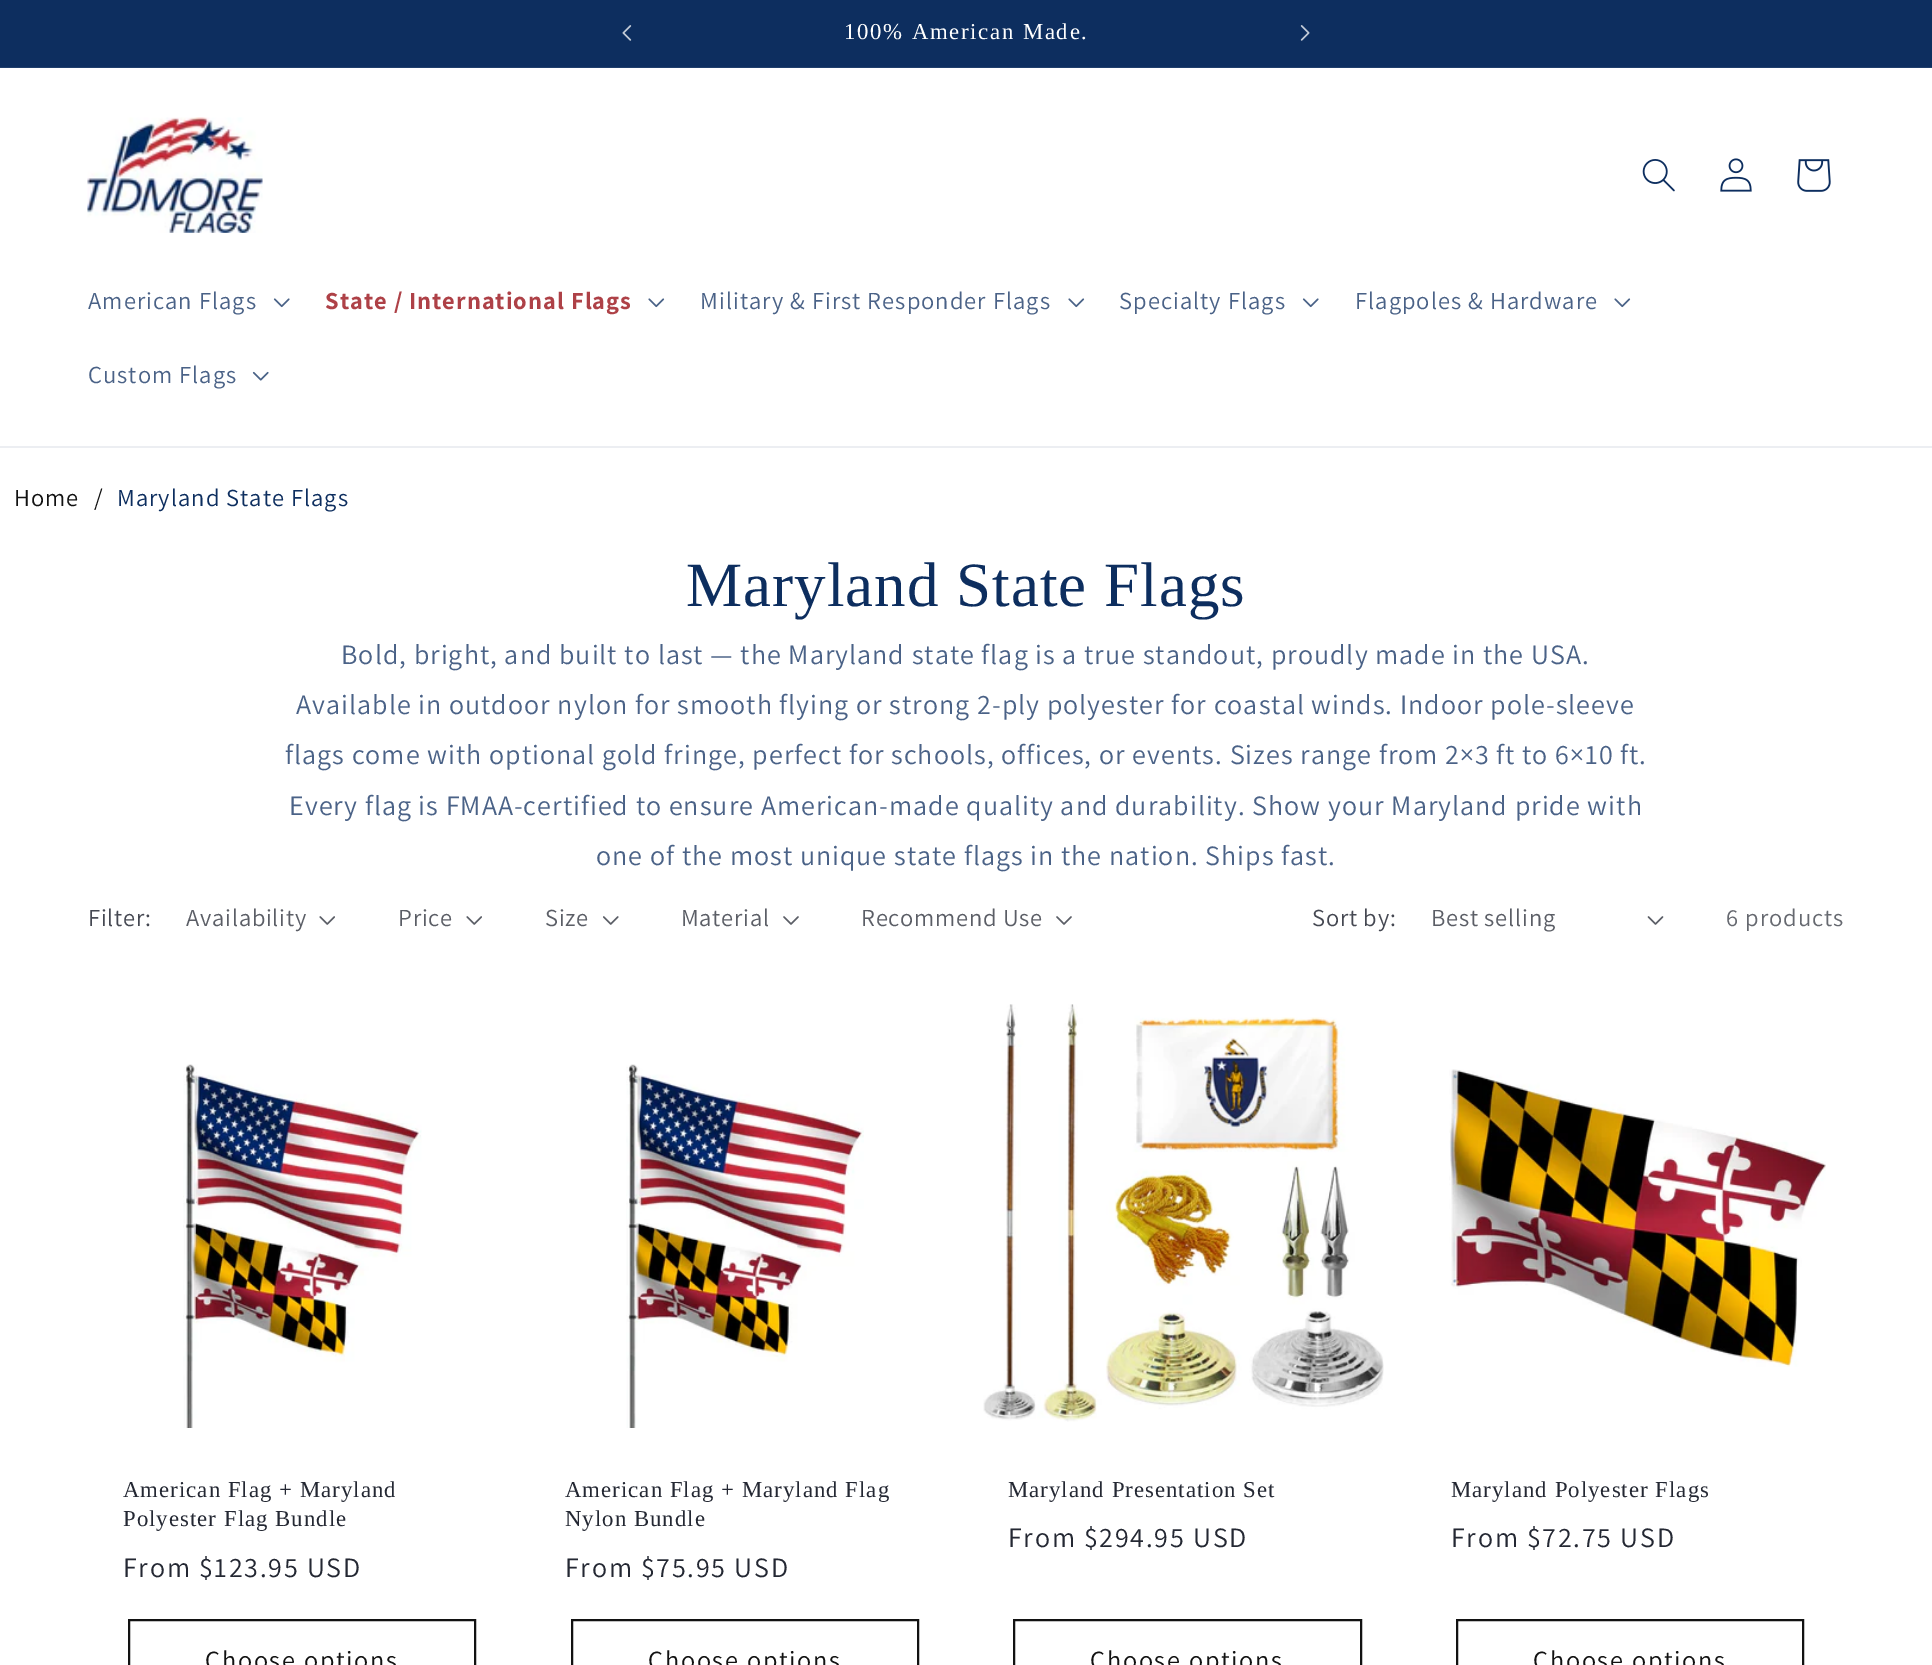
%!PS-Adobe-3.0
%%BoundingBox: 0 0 1932 1665
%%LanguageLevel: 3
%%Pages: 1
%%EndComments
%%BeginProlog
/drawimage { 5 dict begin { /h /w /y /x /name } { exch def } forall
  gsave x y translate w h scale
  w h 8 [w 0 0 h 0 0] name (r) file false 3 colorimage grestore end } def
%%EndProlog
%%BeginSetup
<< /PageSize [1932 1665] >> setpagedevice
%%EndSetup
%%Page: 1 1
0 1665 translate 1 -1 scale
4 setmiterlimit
1 setgray
0 0 1932 1665 rectfill
0.051 0.18 0.373 setrgbcolor
0 0 1932 67 rectfill
0.125 0.247 0.424 setrgbcolor
0 67 1932 1 rectfill
(images/1.raw) 622 25 10 16 drawimage
(images/2.raw) 1300 25 10 16 drawimage
0.925 0.933 0.949 setrgbcolor
0 446 1932 2 rectfill
(images/3.raw) 87 117 176 116 drawimage
(images/4.raw) 1642 159 33 33 drawimage
(images/5.raw) 1720 158 32 34 drawimage
(images/6.raw) 1797 159 34 33 drawimage
(images/7.raw) 273 298 17 10 drawimage
(images/8.raw) 648 298 17 10 drawimage
(images/8.raw) 1068 298 17 10 drawimage
(images/7.raw) 1302 298 17 10 drawimage
(images/8.raw) 1614 298 17 10 drawimage
(images/9.raw) 252 371 17 10 drawimage
(images/10.raw) 319 916 16 9 drawimage
(images/10.raw) 466 916 16 9 drawimage
(images/11.raw) 603 916 16 9 drawimage
(images/12.raw) 783 916 16 9 drawimage
(images/12.raw) 1056 916 16 9 drawimage
(images/13.raw) 1647 916 17 9 drawimage
(images/14.raw) 183 1064 239 364 drawimage
0.071 setgray
2 setlinewidth
129 1620 346 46 rectstroke
(images/15.raw) 626 1064 238 364 drawimage
572 1620 346 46 rectstroke
(images/16.raw) 983 1004 401 418 drawimage
1014 1620 347 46 rectstroke
(images/17.raw) 1449 1069 377 298 drawimage
1457 1620 346 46 rectstroke
/LiberationSerif-Regular [22.75 0 0 -22.75 0 0] selectfont
1 setgray
844 39 moveto 1.75 0 (100% American Made.) ashow
/Assistant-Regular [24.5 0 0 -24.5 0 0] selectfont
0.29 0.384 0.529 setrgbcolor
88 309 moveto 1.05 0 (American Flags) ashow
/Assistant-Bold [24.5 0 0 -24.5 0 0] selectfont
0.682 0.255 0.278 setrgbcolor
325 309 moveto 1.05 0 (State / International Flags) ashow
/Assistant-Regular [24.5 0 0 -24.5 0 0] selectfont
0.29 0.384 0.529 setrgbcolor
700 309 moveto 1.05 0 (Military & First Responder Flags) ashow
1119 309 moveto 1.05 0 (Specialty Flags) ashow
1355 309 moveto 1.05 0 (Flagpoles & Hardware) ashow
88 383 moveto 1.05 0 (Custom Flags) ashow
0.071 setgray
14 506 moveto 1.05 0 (Home) ashow
94 506 moveto 1.05 0 (/) ashow
0.051 0.18 0.373 setrgbcolor
117 506 moveto 1.05 0 (Maryland State Flags) ashow
/LiberationSerif-Regular [63 0 0 -63 0 0] selectfont
686 606 moveto 1.05 0 (Maryland State Flags) ashow
/Assistant-Regular [28 0 0 -28 0 0] selectfont
0.29 0.384 0.529 setrgbcolor
341 664 moveto 1.05 0 (Bold, bright, and built to last — the Maryland state flag is a true standout, proudly made in the USA.) ashow
296 714 moveto 1.05 0 (Available in outdoor nylon for smooth flying or strong 2-ply polyester for coastal winds. Indoor pole-sleeve) ashow
285 764 moveto 1.05 0 (flags come with optional gold fringe, perfect for schools, offices, or events. Sizes range from 2×3 ft to 6×10 ft.) ashow
289 815 moveto 1.05 0 (Every flag is FMAA-certified to ensure American-made quality and durability. Show your Maryland pride with) ashow
596 865 moveto 1.05 0 (one of the most unique state flags in the nation. Ships fast.) ashow
/Assistant-Regular [24.5 0 0 -24.5 0 0] selectfont
0.271 0.282 0.322 setrgbcolor
88 926 moveto 0.75 0 (Filter:) ashow
0.357 0.369 0.4 setrgbcolor
186 926 moveto 0.75 0 (Availability) ashow
398 926 moveto 0.75 0 (Price) ashow
545 926 moveto 0.75 0 (Size) ashow
681 926 moveto 0.75 0 (Material) ashow
861 926 moveto 0.75 0 (Recommend Use) ashow
0.271 0.282 0.322 setrgbcolor
1312 926 moveto 0.75 0 (Sort by:) ashow
0.357 0.369 0.4 setrgbcolor
1431 926 moveto 0.75 0 (Best selling) ashow
0.4 0.412 0.439 setrgbcolor
1726 926 moveto 1.05 0 (6 products) ashow
/LiberationSerif-Regular [22.75 0 0 -22.75 0 0] selectfont
0.141 0.157 0.2 setrgbcolor
123 1497 moveto 1.05 0 (American Flag + Maryland) ashow
123 1526 moveto 1.05 0 (Polyester Flag Bundle) ashow
/Assistant-Regular [28 0 0 -28 0 0] selectfont
123 1577 moveto 1.75 0 (From $123.95 USD) ashow
/Assistant-Regular [26.25 0 0 -26.25 0 0] selectfont
0.071 setgray
205 1669 moveto 1.75 0 (Choose options) ashow
/LiberationSerif-Regular [22.75 0 0 -22.75 0 0] selectfont
0.141 0.157 0.2 setrgbcolor
565 1497 moveto 1.05 0 (American Flag + Maryland Flag) ashow
565 1526 moveto 1.05 0 (Nylon Bundle) ashow
/Assistant-Regular [28 0 0 -28 0 0] selectfont
565 1577 moveto 1.75 0 (From $75.95 USD) ashow
/Assistant-Regular [26.25 0 0 -26.25 0 0] selectfont
0.071 setgray
648 1669 moveto 1.75 0 (Choose options) ashow
/LiberationSerif-Regular [22.75 0 0 -22.75 0 0] selectfont
0.141 0.157 0.2 setrgbcolor
1008 1497 moveto 1.05 0 (Maryland Presentation Set) ashow
/Assistant-Regular [28 0 0 -28 0 0] selectfont
1008 1547 moveto 1.75 0 (From $294.95 USD) ashow
/Assistant-Regular [26.25 0 0 -26.25 0 0] selectfont
0.071 setgray
1090 1669 moveto 1.75 0 (Choose options) ashow
/LiberationSerif-Regular [22.75 0 0 -22.75 0 0] selectfont
0.141 0.157 0.2 setrgbcolor
1451 1497 moveto 1.05 0 (Maryland Polyester Flags) ashow
/Assistant-Regular [28 0 0 -28 0 0] selectfont
1451 1547 moveto 1.75 0 (From $72.75 USD) ashow
/Assistant-Regular [26.25 0 0 -26.25 0 0] selectfont
0.071 setgray
1533 1669 moveto 1.75 0 (Choose options) ashow
showpage
%%EOF
